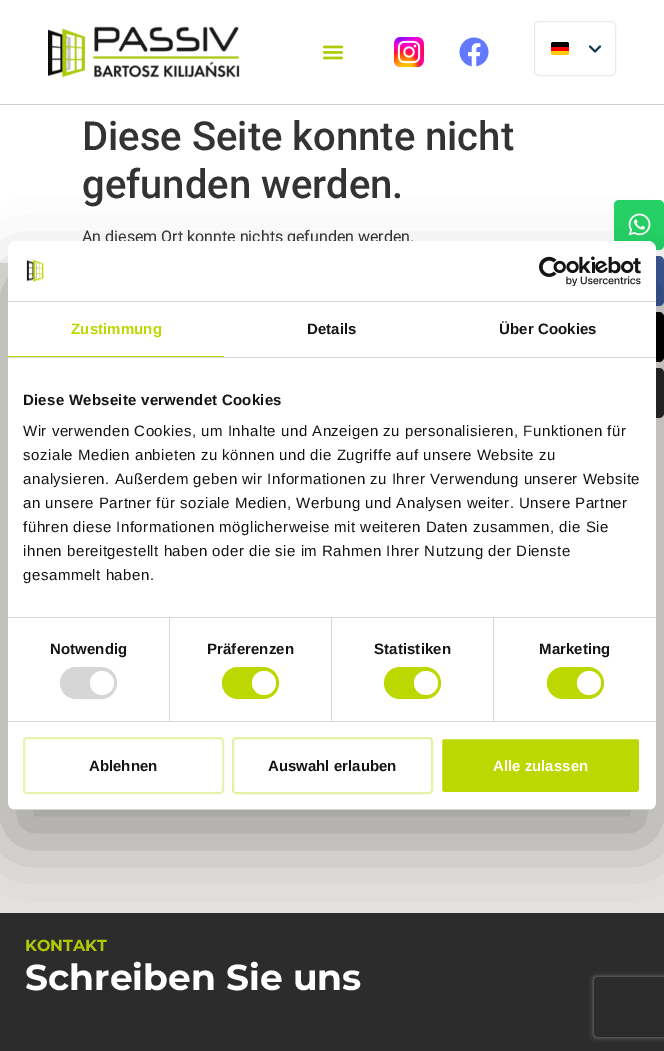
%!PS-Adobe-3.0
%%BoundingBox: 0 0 664 1051
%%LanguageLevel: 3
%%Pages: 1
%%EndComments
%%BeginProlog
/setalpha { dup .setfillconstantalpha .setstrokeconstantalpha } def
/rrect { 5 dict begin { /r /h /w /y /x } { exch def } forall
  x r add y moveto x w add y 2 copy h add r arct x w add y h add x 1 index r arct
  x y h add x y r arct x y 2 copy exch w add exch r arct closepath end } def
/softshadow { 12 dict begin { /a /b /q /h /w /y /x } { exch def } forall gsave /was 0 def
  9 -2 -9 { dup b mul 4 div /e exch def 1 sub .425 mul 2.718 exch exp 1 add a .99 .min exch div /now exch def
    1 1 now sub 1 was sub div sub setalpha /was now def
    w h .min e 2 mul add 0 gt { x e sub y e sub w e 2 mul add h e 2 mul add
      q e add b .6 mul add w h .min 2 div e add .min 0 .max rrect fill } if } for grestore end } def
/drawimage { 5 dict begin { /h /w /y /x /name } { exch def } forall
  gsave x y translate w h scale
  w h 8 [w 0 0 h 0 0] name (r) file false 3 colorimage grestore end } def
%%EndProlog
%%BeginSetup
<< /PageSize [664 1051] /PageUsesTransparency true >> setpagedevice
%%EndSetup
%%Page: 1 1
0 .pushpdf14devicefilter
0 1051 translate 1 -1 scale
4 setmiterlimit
1 setgray
0 0 664 1051 rectfill
0.808 setgray
0 104 664 1 rectfill
(images/1.raw) 48 26 192 52 drawimage
(images/2.raw) 322 45 22 15 drawimage
(images/3.raw) 394 37 30 30 drawimage
(images/4.raw) 459 37 30 30 drawimage
0.91 0.922 0.933 setrgbcolor
534.5 21.5 81 54 4.5 rrect stroke
1 0.8 0 setrgbcolor
newpath 551 51 moveto 569 51 lineto 569 53 lineto 569 54 568 55 567 55 curveto 553 55 lineto 552 55 551 54 551 53 curveto closepath fill
0 0 0.004 setrgbcolor
newpath 553 42 moveto 567 42 lineto 568 42 569 43 569 44 curveto 569 47 lineto 551 47 lineto 551 44 lineto 551 43 552 42 553 42 curveto closepath fill
1 0 0 setrgbcolor
551 47 18 4 rectfill
0.078 0.22 0.322 setrgbcolor
1.9 setlinewidth
1 setlinecap
1 setlinejoin
newpath 590 46.5 moveto 595 51.5 lineto 600 46.5 lineto stroke
0.898 0.89 0.875 setrgbcolor
0 263 664 650 rectfill
0.13 setalpha
0.8 setgray
614 200 50 218 18 rrect fill
1 setalpha
0.145 0.827 0.4 setrgbcolor
614 200 50 50 5 rrect fill
(images/7.raw) 628 213 23 23 drawimage
0.231 0.349 0.596 setrgbcolor
614 256 50 50 5 rrect fill
0 setgray
614 312 50 50 5 rrect fill
0.149 setgray
614 368 50 50 5 rrect fill
0.173 setgray
0 913 664 138 rectfill
0 setgray
8 273 648 569 8 34 0.3 softshadow
gsave
newpath 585 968 moveto 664 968 lineto 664 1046 lineto 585 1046 lineto closepath 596 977 moveto 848 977 lineto 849 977 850 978 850 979 curveto 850 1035 lineto 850 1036 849 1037 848 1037 curveto 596 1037 lineto 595 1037 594 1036 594 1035 curveto 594 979 lineto 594 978 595 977 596 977 curveto closepath eoclip newpath
0.502 setgray
594 977 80 60 2 2.5 1 softshadow
grestore
/Roboto-Medium [40 0 0 -40 0 0] selectfont
0.2 setgray
82 150 moveto (Diese Seite konnte nicht) show
82 198 moveto (gefunden werden.) show
/Roboto-Regular [16 0 0 -16 0 0] selectfont
82 242 moveto (An diesem Ort konnte nichts gefunden werden.) show
1 setgray
8 241 648 569 8 rrect fill
0.839 setgray
8 301 648 1 rectfill
(images/5.raw) 26 259 18 24 drawimage
(images/6.raw) 539 256 102 30 drawimage
8 357 648 1 rectfill
0.737 0.847 0 setrgbcolor
8 356 216 1 rectfill
/LiberationSans-Bold [15 0 0 -15 0 0] selectfont
71 334 moveto 0.1 0 (Zustimmung) ashow
0.078 setgray
307 334 moveto 0.1 0 (Details) ashow
499 334 moveto 0.1 0 (Über Cookies) ashow
0.839 setgray
8 617 648 1 rectfill
0.078 setgray
23 405 moveto 0.25 0 (Diese Webseite verwendet Cookies) ashow
/LiberationSans-Regular [15 0 0 -15 0 0] selectfont
23 436 moveto 0.5 0 (Wir verwenden Cookies, um Inhalte und Anzeigen zu personalisieren, Funktionen für) ashow
23 460 moveto 0.5 0 (soziale Medien anbieten zu können und die Zugriffe auf unsere Website zu) ashow
23 484 moveto 0.5 0 (analysieren. Außerdem geben wir Informationen zu Ihrer Verwendung unserer Website) ashow
23 508 moveto 0.5 0 (an unsere Partner für soziale Medien, Werbung und Analysen weiter. Unsere Partner) ashow
23 532 moveto 0.5 0 (führen diese Informationen möglicherweise mit weiteren Daten zusammen, die Sie) ashow
23 556 moveto 0.5 0 (ihnen bereitgestellt haben oder die sie im Rahmen Ihrer Nutzung der Dienste) ashow
23 580 moveto 0.5 0 (gesammelt haben.) ashow
0.839 setgray
8 721 648 1 rectfill
169 618 1 103 rectfill
/LiberationSans-Bold [15 0 0 -15 0 0] selectfont
0.078 setgray
50 654 moveto 0.1 0 (Notwendig) ashow
0.839 setgray
60 667 57 32 16 rrect fill
1 setgray
newpath 102 683 12 0 360 arc closepath fill
0.839 setgray
331 618 1 103 rectfill
0.078 setgray
207 654 moveto 0.1 0 (Präferenzen) ashow
0.737 0.847 0 setrgbcolor
222 667 57 32 16 rrect fill
1 setgray
newpath 264 683 12 0 360 arc closepath fill
0.839 setgray
493 618 1 103 rectfill
0.078 setgray
374 654 moveto 0.1 0 (Statistiken) ashow
0.737 0.847 0 setrgbcolor
384 667 57 32 16 rrect fill
1 setgray
newpath 426 683 12 0 360 arc closepath fill
0.078 setgray
539 654 moveto 0.1 0 (Marketing) ashow
0.737 0.847 0 setrgbcolor
547 667 57 32 16 rrect fill
1 setgray
newpath 589 683 12 0 360 arc closepath fill
gsave
8 241 648 569 8 rrect clip newpath
0.839 setgray
8 809 648 1 rectfill
grestore
0.914 0.949 0.686 setrgbcolor
2 setlinewidth
0 setlinecap
0 setlinejoin
24 738 199 55 3 rrect stroke
0.078 setgray
89 771 moveto (Ablehnen) show
0.906 0.945 0.651 setrgbcolor
233 738 199 55 3 rrect stroke
0.078 setgray
268 771 moveto (Auswahl erlauben) show
0.737 0.847 0 setrgbcolor
441 738 199 55 3 rrect gsave fill grestore
1 setgray
stroke
493 771 moveto (Alle zulassen) show
/Montserrat-Bold [16 0 0 -16 0 0] selectfont
0.686 0.792 0.02 setrgbcolor
25 951 moveto (KONTAKT) show
/Montserrat-Bold [36 0 0 -36 0 0] selectfont
1 setgray
25 990 moveto (Schreiben Sie uns) show
.poppdf14devicefilter showpage
%%EOF
